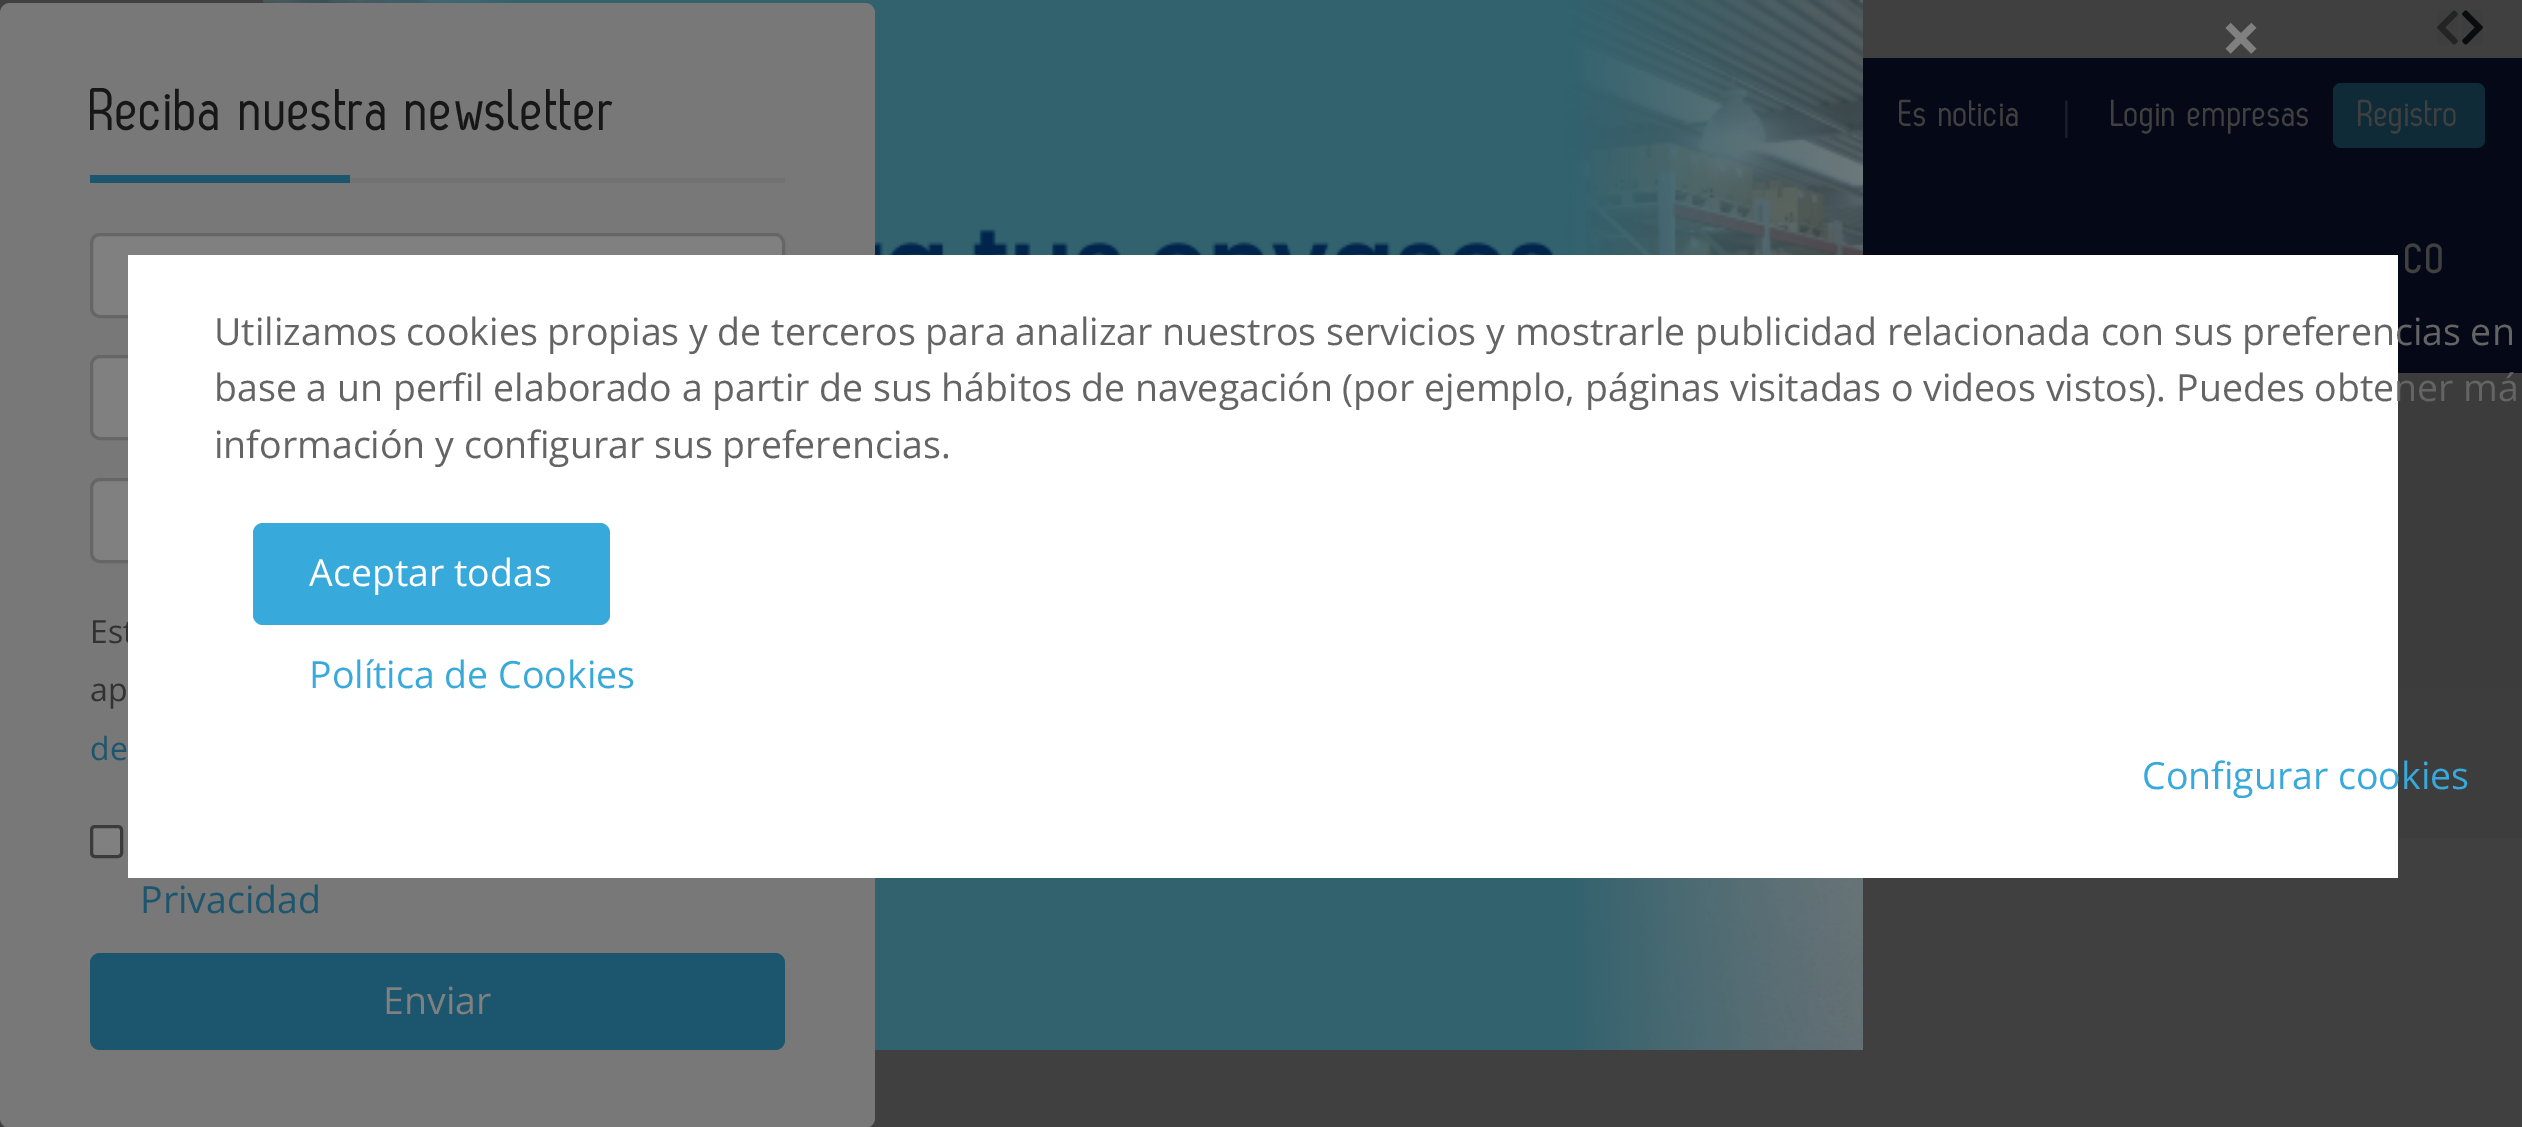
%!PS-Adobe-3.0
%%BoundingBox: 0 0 2522 1127
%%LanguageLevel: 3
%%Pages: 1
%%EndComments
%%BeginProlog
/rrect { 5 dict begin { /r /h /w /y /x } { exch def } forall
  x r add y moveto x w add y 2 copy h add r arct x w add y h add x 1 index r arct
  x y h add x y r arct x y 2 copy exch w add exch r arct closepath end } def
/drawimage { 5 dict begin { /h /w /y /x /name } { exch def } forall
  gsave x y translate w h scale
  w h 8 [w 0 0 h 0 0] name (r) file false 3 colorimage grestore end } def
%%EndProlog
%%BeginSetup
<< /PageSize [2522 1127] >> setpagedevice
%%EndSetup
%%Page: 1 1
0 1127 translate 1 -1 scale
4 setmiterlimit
0.251 setgray
0 0 2522 1127 rectfill
(images/1.raw) 263 0 1600 1050 drawimage
(images/2.raw) 2437 10 21 35 drawimage
(images/3.raw) 2462 10 21 35 drawimage
0.471 setgray
0 3 875 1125 10 rrect fill
0.447 setgray
350 178 435 5 rectfill
0.11 0.333 0.431 setrgbcolor
90 175 260 8 rectfill
0.502 setgray
91.5 234.5 692 82 8.5 rrect gsave fill grestore
0.4 setgray
3 setlinewidth
stroke
0.502 setgray
91.5 356.5 692 82 8.5 rrect gsave fill grestore
0.4 setgray
stroke
0.502 setgray
91.5 479.5 692 82 8.5 rrect gsave fill grestore
0.4 setgray
stroke
0.502 setgray
91.5 826.5 30 30 3.5 rrect gsave fill grestore
0.231 setgray
stroke
0.11 0.333 0.431 setrgbcolor
90 953 695 97 10 rrect fill
0.02 0.035 0.09 setrgbcolor
1863 58 659 315 rectfill
0.055 0.169 0.216 setrgbcolor
2333 83 152 65 8 rrect fill
0.235 setgray
2398 373 124 315 rectfill
0.239 setgray
2398 688 124 150 rectfill
/OpenSans-Bold [70 0 0 -70 0 0] selectfont
0.502 setgray
2221 63 moveto (×) show
/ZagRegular-Regular [60 0 0 -60 0 0] selectfont
0.09 setgray
90 130 moveto (Reciba nuestra newsletter) show
/OpenSans-Regular [32 0 0 -32 0 0] selectfont
0.196 setgray
90 643 moveto (Est) show
90 701 moveto (ap) show
0.11 0.333 0.431 setrgbcolor
90 760 moveto (de) show
/OpenSans-Regular [37.5 0 0 -37.5 0 0] selectfont
140 913 moveto (Privacidad) show
0.502 setgray
383 1014 moveto (Enviar) show
/ZagRegular-Regular [37.5 0 0 -37.5 0 0] selectfont
0.251 setgray
1899 126 moveto (Es noticia) show
/OpenSans-Regular [37.5 0 0 -37.5 0 0] selectfont
0.094 0.118 0.165 setrgbcolor
2056 129 moveto (|) show
/ZagRegular-Regular [37.5 0 0 -37.5 0 0] selectfont
0.251 setgray
2111 126 moveto (Login empresas) show
2358 126 moveto (Registro) show
/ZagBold-Bold [42 0 0 -42 0 0] selectfont
2405 273 moveto 1 0 (CO) ashow
1 setgray
128 255 2270 623 rectfill
/OpenSans-Regular [37.5 0 0 -37.5 0 0] selectfont
0.392 setgray
214 345 moveto (Utilizamos cookies propias y de terceros para analizar nuestros servicios y mostrarle publicidad relacionada con sus preferencias en) show
214 401 moveto (base a un perfil elaborado a partir de sus hábitos de navegación \(por ejemplo, páginas visitadas o videos vistos\). Puedes obtener má) show
214 458 moveto (información y configurar sus preferencias.) show
0.22 0.663 0.859 setrgbcolor
253 523 357 102 10 rrect fill
1 setgray
309 586 moveto (Aceptar todas) show
0.22 0.663 0.859 setrgbcolor
309 688 moveto (Política de Cookies) show
2142 789 moveto (Configurar cookies) show
showpage
%%EOF
